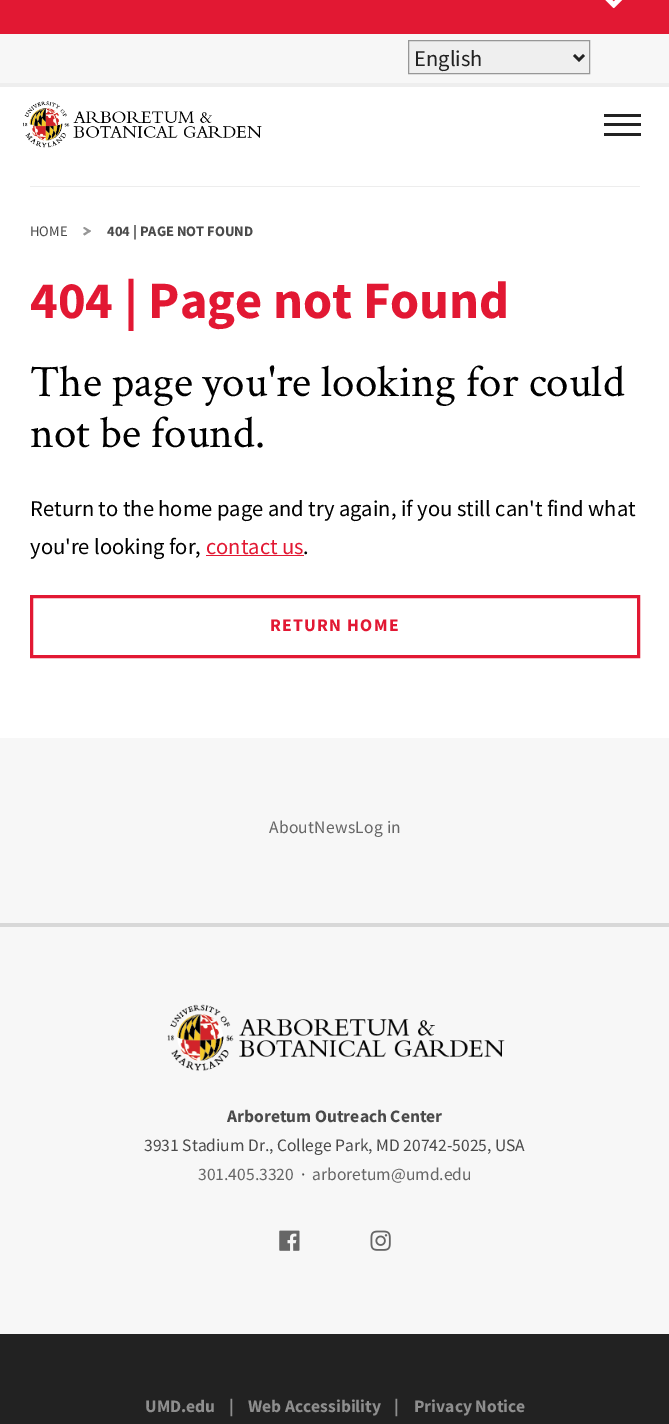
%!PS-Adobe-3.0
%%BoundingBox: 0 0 669 1424
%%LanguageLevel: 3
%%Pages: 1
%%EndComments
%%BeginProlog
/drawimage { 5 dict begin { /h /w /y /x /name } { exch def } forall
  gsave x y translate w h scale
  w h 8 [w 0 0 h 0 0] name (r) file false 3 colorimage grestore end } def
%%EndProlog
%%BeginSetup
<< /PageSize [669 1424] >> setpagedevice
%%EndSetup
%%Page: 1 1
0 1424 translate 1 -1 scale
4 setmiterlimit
1 setgray
0 0 669 1424 rectfill
0.886 0.094 0.2 setrgbcolor
0 0 669 34 rectfill
(images/1.raw) 605 0 18 9 drawimage
0.969 setgray
0 34 669 49 rectfill
0.933 setgray
0 83 669 4 rectfill
0.937 setgray
newpath 408.5 40.5 moveto 589.5 40.5 lineto 589.5 73.5 lineto 408.5 73.5 lineto closepath gsave fill grestore
0.592 setgray
stroke
0.133 setgray
2.5 setlinewidth
newpath 574 55 moveto 579 60 lineto 584 55 lineto stroke
(images/2.raw) 22 101 240 47 drawimage
604 114 37 3 rectfill
604 123 37 3 rectfill
604 133 37 3 rectfill
0.929 setgray
30 186 610 1 rectfill
0.592 setgray
newpath 83 228 moveto 84.5 227 lineto 91 231 lineto 89 232.5 lineto closepath fill
newpath 83 234 moveto 89 230 lineto 91 231 lineto 84.5 235.5 lineto closepath fill
0.886 0.094 0.2 setrgbcolor
206 555 98 1 rectfill
3 setlinewidth
31.5 596.5 607 60 rectstroke
0.969 setgray
0 738 669 596 rectfill
0.847 setgray
0 923 669 4 rectfill
(images/3.raw) 167 1004 338 67 drawimage
(images/4.raw) 279 1230 21 21 drawimage
(images/5.raw) 370 1230 21 21 drawimage
0.133 setgray
0 1334 669 90 rectfill
/SourceSansPro-Regular [22.5 0 0 -22.5 0 0] selectfont
414 66 moveto (English) show
/SourceSansPro-Regular [14.5 0 0 -14.5 0 0] selectfont
0.29 setgray
30 236 moveto (HOME) show
/SourceSansPro-Bold [14.5 0 0 -14.5 0 0] selectfont
107 236 moveto (404 | PAGE NOT FOUND) show
/SourceSansPro-Bold [52.5 0 0 -52.5 0 0] selectfont
0.886 0.094 0.2 setrgbcolor
30 318 moveto (404 | Page not Found) show
/CrimsonText-Regular [45 0 0 -45 0 0] selectfont
0 setgray
30 396 moveto (The page you're looking for could) show
30 447 moveto (not be found.) show
/SourceSansPro-Regular [22.5 0 0 -22.5 0 0] selectfont
30 516 moveto (Return to the home page and try again, if you still can't find what) show
30 554 moveto (you're looking for,) show
0.886 0.094 0.2 setrgbcolor
206 554 moveto (contact us) show
0 setgray
303 554 moveto (.) show
/SourceSansPro-Bold [17.75 0 0 -17.75 0 0] selectfont
0.886 0.094 0.2 setrgbcolor
270 631 moveto 1.25 0 (RETURN HOME) ashow
/SourceSansPro-Regular [17.5 0 0 -17.5 0 0] selectfont
0.4 setgray
269 833 moveto 0.25 0 (AboutNewsLog in) ashow
/SourceSansPro-Bold [17.5 0 0 -17.5 0 0] selectfont
0.29 setgray
227 1122 moveto (Arboretum Outreach Center) show
/SourceSansPro-Regular [17.5 0 0 -17.5 0 0] selectfont
144 1151 moveto (3931 Stadium Dr., College Park, MD 20742-5025, USA) show
0.4 setgray
198 1180 moveto (301.405.3320) show
0.29 setgray
301 1180 moveto (·) show
0.4 setgray
312 1180 moveto (arboretum@umd.edu) show
/SourceSansPro-Bold [17.5 0 0 -17.5 0 0] selectfont
0.557 setgray
145 1412 moveto (UMD.edu) show
229 1412 moveto (|) show
248 1412 moveto (Web Accessibility) show
394 1412 moveto (|) show
414 1412 moveto (Privacy Notice) show
showpage
%%EOF
